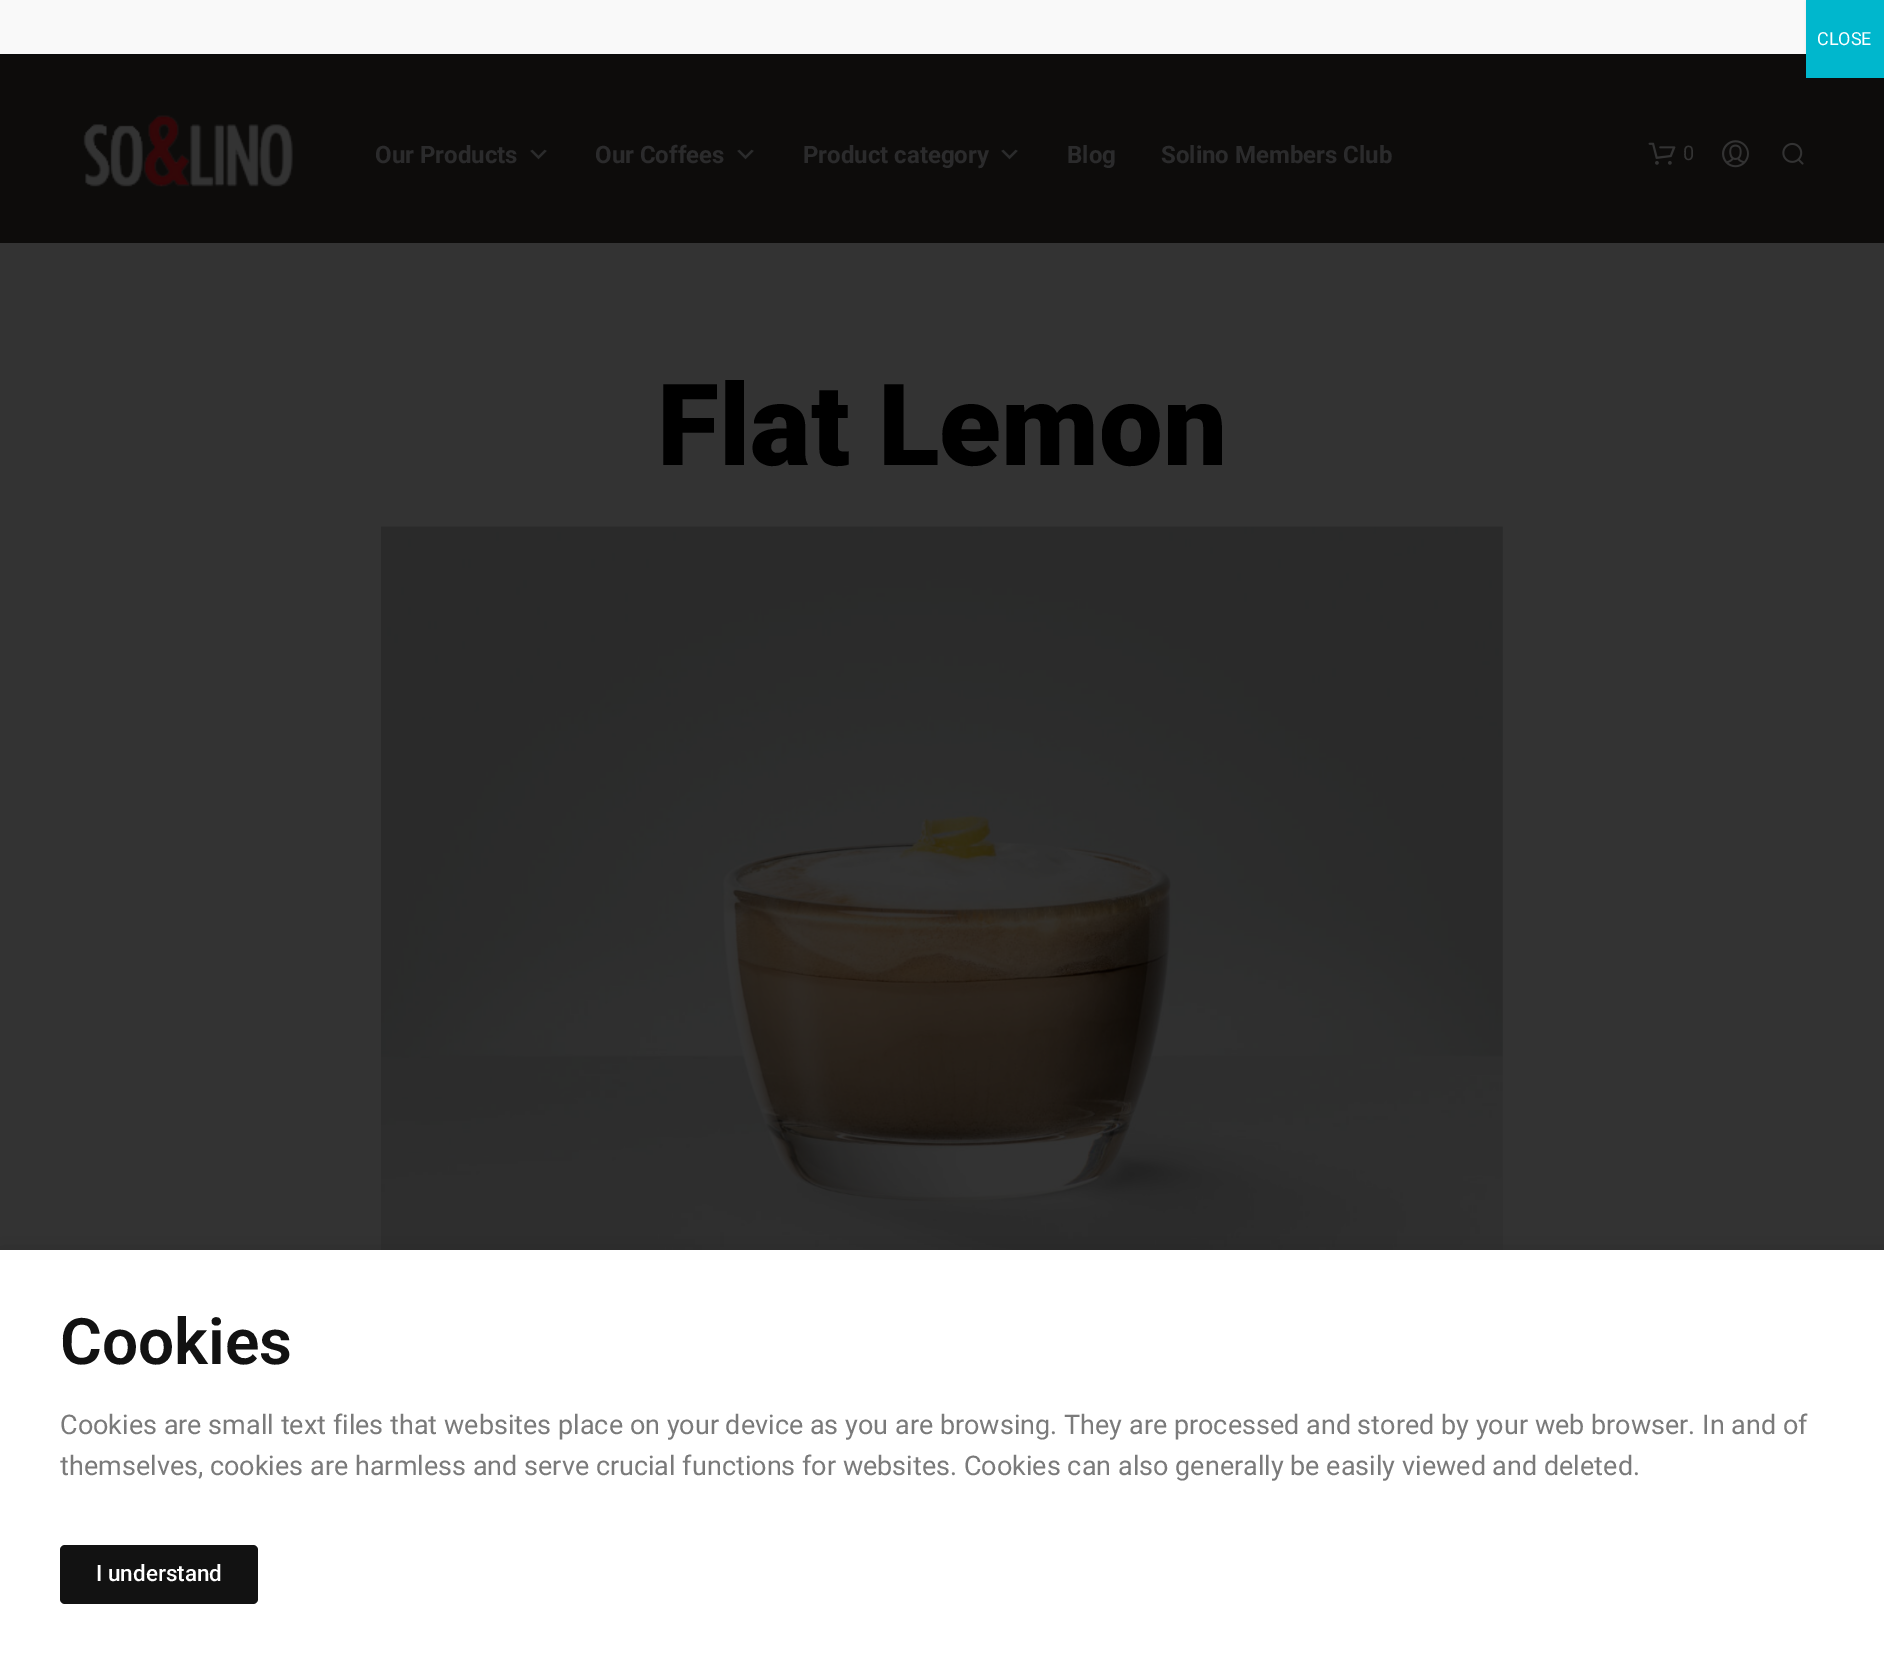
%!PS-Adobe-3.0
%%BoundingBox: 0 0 1884 1663
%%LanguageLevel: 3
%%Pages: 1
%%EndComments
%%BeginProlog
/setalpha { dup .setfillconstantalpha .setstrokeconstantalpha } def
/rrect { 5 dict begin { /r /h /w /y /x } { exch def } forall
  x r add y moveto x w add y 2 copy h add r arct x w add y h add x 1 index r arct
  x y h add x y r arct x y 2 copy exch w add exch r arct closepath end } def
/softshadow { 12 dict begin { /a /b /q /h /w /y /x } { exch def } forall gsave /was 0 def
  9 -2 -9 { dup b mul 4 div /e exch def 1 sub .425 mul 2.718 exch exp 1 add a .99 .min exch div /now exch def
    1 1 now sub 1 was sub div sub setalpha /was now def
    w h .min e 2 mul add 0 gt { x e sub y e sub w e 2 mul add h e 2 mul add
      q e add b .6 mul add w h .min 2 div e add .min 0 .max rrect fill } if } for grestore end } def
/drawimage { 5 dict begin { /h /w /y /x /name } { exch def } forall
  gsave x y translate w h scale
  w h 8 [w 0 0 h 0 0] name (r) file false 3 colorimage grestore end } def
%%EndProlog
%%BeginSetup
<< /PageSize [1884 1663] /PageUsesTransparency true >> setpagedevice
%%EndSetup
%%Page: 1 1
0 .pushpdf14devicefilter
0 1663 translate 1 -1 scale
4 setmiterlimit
0.2 setgray
0 0 1884 1663 rectfill
0.051 0.047 0.043 setrgbcolor
0 54 1806 11 rectfill
0.008 setgray
2 2 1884 54 0 2 0.23 softshadow
0.976 setgray
0 0 1806 54 rectfill
0.051 0.047 0.043 setrgbcolor
0 65 1884 178 rectfill
0.008 setgray
1808 2 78 78 0 2 0.23 softshadow
0 0.718 0.804 setrgbcolor
1806 0 78 78 rectfill
(images/1.raw) 83 115 210 72 drawimage
(images/2.raw) 530 149 17 11 drawimage
(images/2.raw) 737 149 17 11 drawimage
(images/2.raw) 1001 149 17 11 drawimage
(images/3.raw) 1648 142 28 23 drawimage
(images/4.raw) 1722 140 27 28 drawimage
(images/5.raw) 1782 142 22 23 drawimage
(images/6.raw) 381 526 1122 724 drawimage
0 setgray
-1 1257 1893 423 0 17 0.2 softshadow
1 setgray
0 1250 1884 413 rectfill
0.071 setgray
60 1545 198 59 5 rrect fill
/Roboto-Regular [18 0 0 -18 0 0] selectfont
1 setgray
1817 45 moveto (CLOSE) show
/Roboto-Bold [24 0 0 -24 0 0] selectfont
0.169 0.169 0.173 setrgbcolor
375 163 moveto (Our Products) show
595 163 moveto (Our Coffees) show
803 163 moveto (Product category) show
1067 163 moveto (Blog) show
1161 163 moveto (Solino Members Club) show
/Roboto-Regular [20 0 0 -20 0 0] selectfont
0.2 setgray
1683 160 moveto (0) show
/Roboto-Black [113.5 0 0 -113.5 0 0] selectfont
0 setgray
657 465 moveto (Flat Lemon) show
/Roboto-SemiBold [64 0 0 -64 0 0] selectfont
0.071 setgray
60 1364 moveto (Cookies) show
/Roboto-Regular [27 0 0 -27 0 0] selectfont
0.478 setgray
60 1434 moveto (Cookies are small text files that websites place on your device as you are browsing. They are processed and stored by your web browser. In and of) show
60 1475 moveto (themselves, cookies are harmless and serve crucial functions for websites. Cookies can also generally be easily viewed and deleted.) show
/Roboto-Medium [22.5 0 0 -22.5 0 0] selectfont
1 setgray
96 1581 moveto (I understand) show
.poppdf14devicefilter showpage
%%EOF
